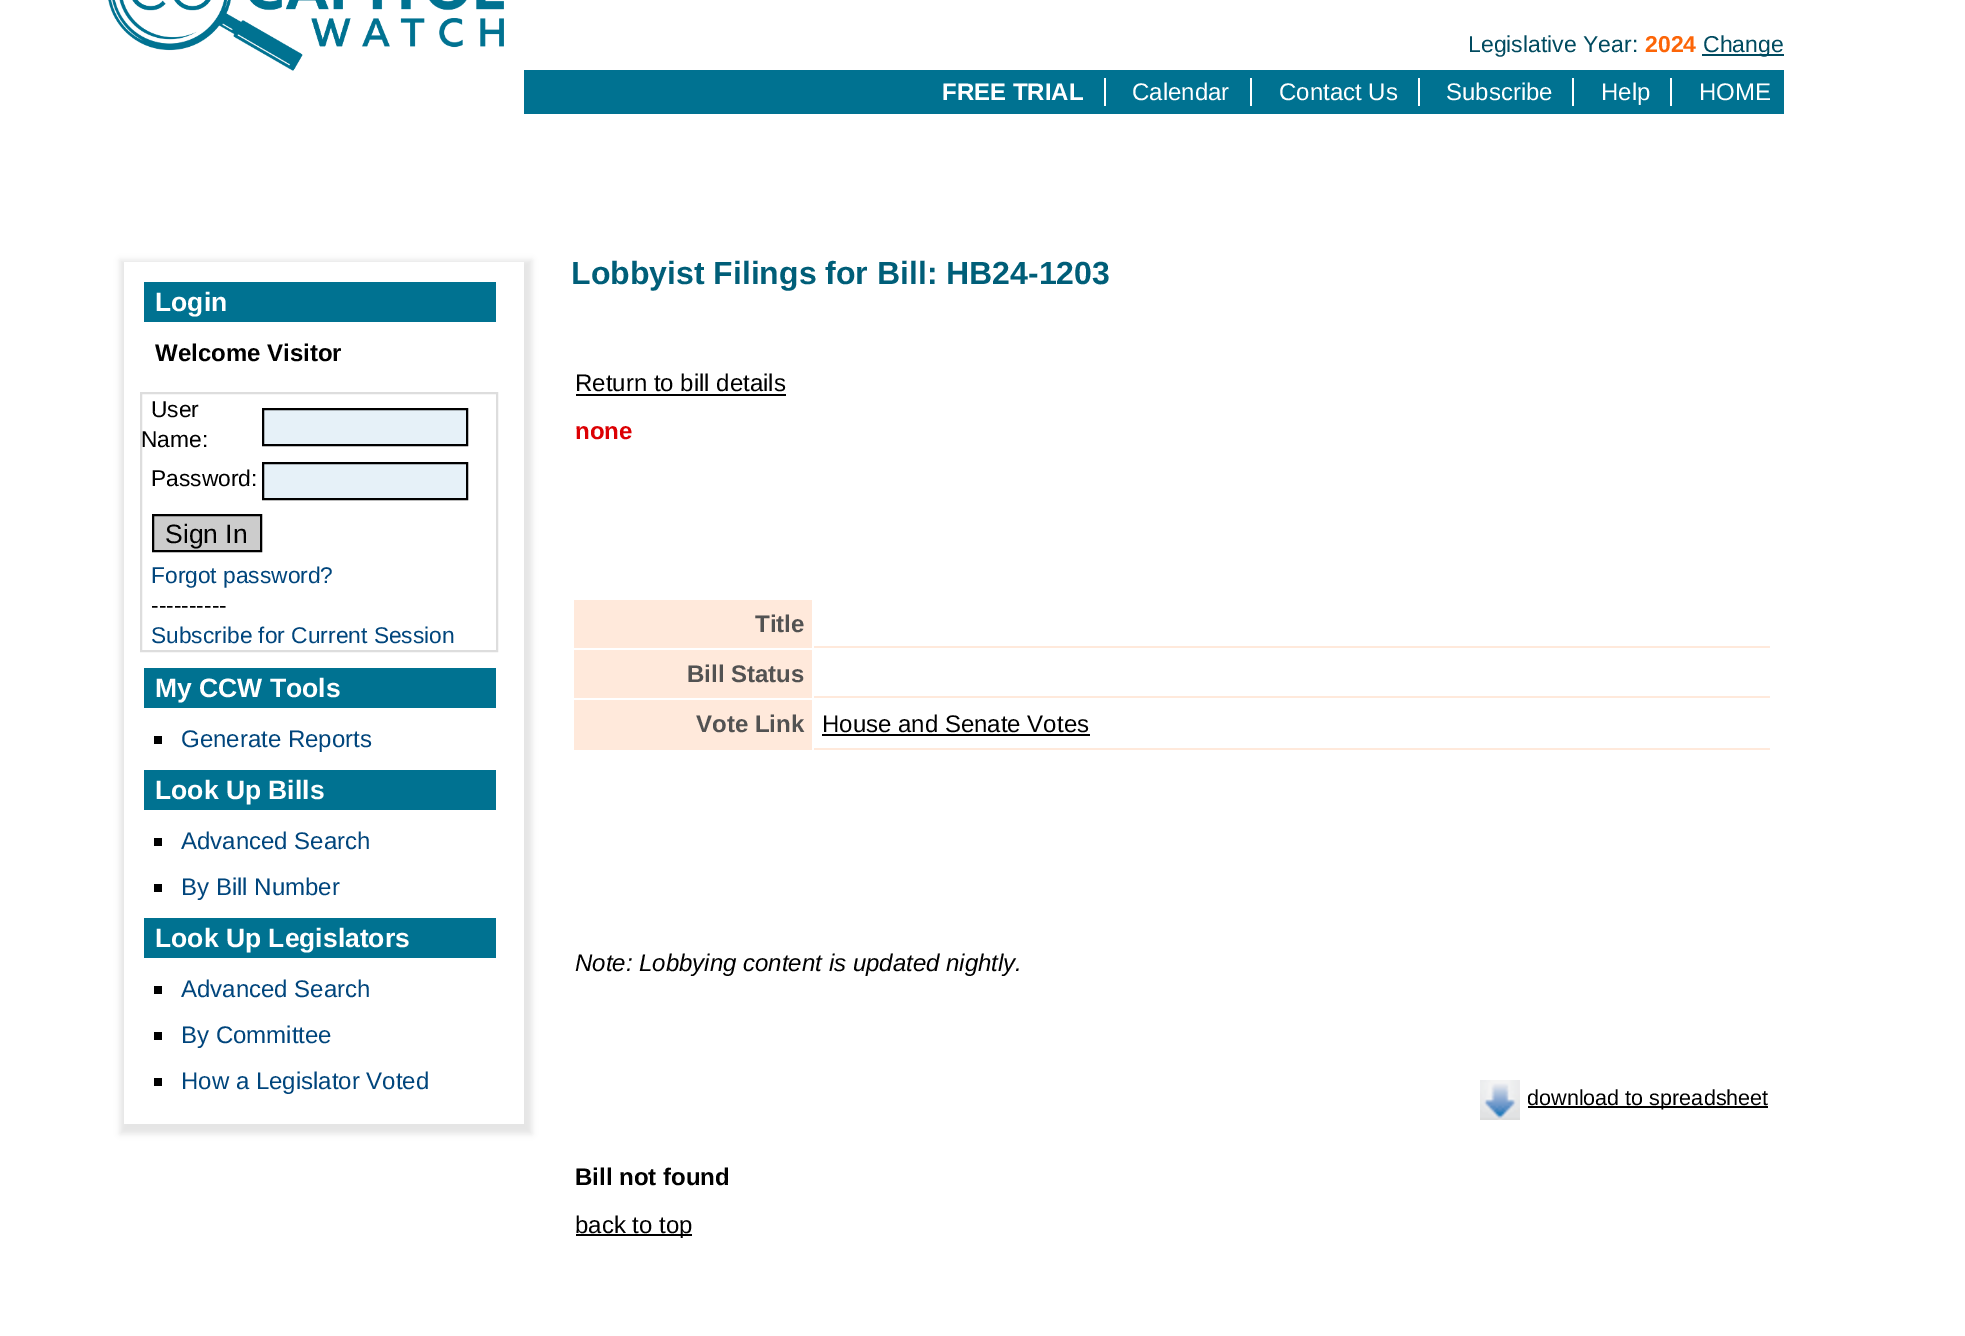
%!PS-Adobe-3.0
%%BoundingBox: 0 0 1965 1336
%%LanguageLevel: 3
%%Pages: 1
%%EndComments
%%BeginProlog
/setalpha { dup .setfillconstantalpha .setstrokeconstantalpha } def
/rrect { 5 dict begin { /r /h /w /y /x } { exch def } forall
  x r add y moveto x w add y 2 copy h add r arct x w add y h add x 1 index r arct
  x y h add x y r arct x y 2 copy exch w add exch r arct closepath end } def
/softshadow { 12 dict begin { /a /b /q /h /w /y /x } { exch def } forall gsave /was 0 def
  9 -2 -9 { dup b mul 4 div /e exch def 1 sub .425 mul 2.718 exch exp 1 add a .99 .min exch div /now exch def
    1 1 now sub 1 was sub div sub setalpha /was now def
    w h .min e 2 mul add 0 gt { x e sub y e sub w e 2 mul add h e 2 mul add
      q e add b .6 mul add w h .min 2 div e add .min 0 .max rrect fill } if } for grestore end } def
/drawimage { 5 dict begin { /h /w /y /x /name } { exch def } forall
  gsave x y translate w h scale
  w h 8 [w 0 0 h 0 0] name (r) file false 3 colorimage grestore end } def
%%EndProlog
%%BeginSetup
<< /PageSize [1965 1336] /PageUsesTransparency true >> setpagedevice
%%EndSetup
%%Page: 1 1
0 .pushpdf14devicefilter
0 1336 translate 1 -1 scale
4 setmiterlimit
1 setgray
0 0 1965 1336 rectfill
(images/1.raw) 108 0 396 71 drawimage
gsave
newpath 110 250 moveto 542 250 lineto 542 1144 lineto 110 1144 lineto closepath 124 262 moveto 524 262 lineto 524 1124 lineto 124 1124 lineto closepath eoclip newpath
0 setgray
120 260 412 874 0 3 0.1 softshadow
grestore
0 0.447 0.569 setrgbcolor
144 282 352 40 rectfill
0.867 setgray
2 setlinewidth
141 393 356 258 rectstroke
0.902 0.945 0.973 setrgbcolor
newpath 263 409 moveto 467 409 lineto 467 445 lineto 263 445 lineto closepath gsave fill grestore
0 setgray
stroke
0.902 0.945 0.973 setrgbcolor
newpath 263 463 moveto 467 463 lineto 467 499 lineto 263 499 lineto closepath gsave fill grestore
0 setgray
stroke
0.8 setgray
newpath 153 515 moveto 261 515 lineto 261 551 lineto 153 551 lineto closepath gsave fill grestore
0 setgray
stroke
0 0.447 0.569 setrgbcolor
144 668 352 40 rectfill
0 setgray
154 736 8 8 rectfill
0 0.447 0.569 setrgbcolor
144 770 352 40 rectfill
0 setgray
154 838 8 8 rectfill
154 884 8 8 rectfill
0 0.447 0.569 setrgbcolor
144 918 352 40 rectfill
0 setgray
154 986 8 8 rectfill
154 1032 8 8 rectfill
154 1078 8 8 rectfill
0 0.29 0.373 setrgbcolor
1702 54 82 2 rectfill
0 0.447 0.569 setrgbcolor
524 70 1260 44 rectfill
1 setgray
1104 78 2 28 rectfill
1250 78 2 28 rectfill
1418 78 2 28 rectfill
1572 78 2 28 rectfill
1670 78 2 28 rectfill
0 setgray
576 394 210 2 rectfill
1 0.914 0.859 setrgbcolor
574 600 238 48 rectfill
814 646 956 2 rectfill
574 650 238 48 rectfill
814 696 956 2 rectfill
574 700 238 50 rectfill
814 748 956 2 rectfill
0 setgray
822 734 268 2 rectfill
(images/2.raw) 1480 1080 40 40 drawimage
1528 1106 240 2 rectfill
576 1234 116 2 rectfill
/LiberationSans-Bold [26.5 0 0 -26.5 0 0] selectfont
1 setgray
155 311 moveto (Login) show
/LiberationSans-Bold [24 0 0 -24 0 0] selectfont
0 setgray
155 361 moveto (Welcome Visitor) show
/LiberationSans-Regular [22.75 0 0 -22.75 0 0] selectfont
151 417 moveto (User) show
141 447 moveto (Name:) show
151 486 moveto (Password:) show
/LiberationSans-Regular [26.5 0 0 -26.5 0 0] selectfont
165 543 moveto (Sign In) show
/LiberationSans-Regular [22.75 0 0 -22.75 0 0] selectfont
0 0.271 0.486 setrgbcolor
151 583 moveto (Forgot password?) show
0 setgray
151 613 moveto (----------) show
0 0.271 0.486 setrgbcolor
151 643 moveto (Subscribe for Current Session) show
/LiberationSans-Bold [26.5 0 0 -26.5 0 0] selectfont
1 setgray
155 697 moveto (My CCW Tools) show
/LiberationSans-Regular [24 0 0 -24 0 0] selectfont
0 0.271 0.486 setrgbcolor
181 747 moveto (Generate Reports) show
/LiberationSans-Bold [26.5 0 0 -26.5 0 0] selectfont
1 setgray
155 799 moveto (Look Up Bills) show
/LiberationSans-Regular [24 0 0 -24 0 0] selectfont
0 0.271 0.486 setrgbcolor
181 849 moveto (Advanced Search) show
181 895 moveto (By Bill Number) show
/LiberationSans-Bold [26.5 0 0 -26.5 0 0] selectfont
1 setgray
155 947 moveto (Look Up Legislators) show
/LiberationSans-Regular [24 0 0 -24 0 0] selectfont
0 0.271 0.486 setrgbcolor
181 997 moveto (Advanced Search) show
181 1043 moveto (By Committee) show
181 1089 moveto (How a Legislator Voted) show
/LiberationSans-Regular [23 0 0 -23 0 0] selectfont
0 0.29 0.373 setrgbcolor
1468 52 moveto (Legislative Year:) show
/LiberationSans-Bold [23 0 0 -23 0 0] selectfont
0.988 0.396 0.031 setrgbcolor
1645 52 moveto (2024) show
/LiberationSans-Regular [23 0 0 -23 0 0] selectfont
0 0.29 0.373 setrgbcolor
1703 52 moveto (Change) show
/LiberationSans-Bold [24 0 0 -24 0 0] selectfont
1 setgray
942 100 moveto (FREE TRIAL) show
/LiberationSans-Regular [24 0 0 -24 0 0] selectfont
1132 100 moveto (Calendar) show
1279 100 moveto (Contact Us) show
1446 100 moveto (Subscribe) show
1601 100 moveto (Help) show
1699 100 moveto (HOME) show
/LiberationSans-Bold [32 0 0 -32 0 0] selectfont
0 0.369 0.471 setrgbcolor
571 284 moveto (Lobbyist Filings for Bill: HB24-1203) show
/LiberationSans-Regular [24 0 0 -24 0 0] selectfont
0 setgray
575 391 moveto (Return to bill details) show
/LiberationSans-Bold [24 0 0 -24 0 0] selectfont
0.863 0 0.012 setrgbcolor
575 439 moveto (none) show
0.322 setgray
755 632 moveto (Title) show
687 682 moveto (Bill Status) show
696 732 moveto (Vote Link) show
/LiberationSans-Regular [24 0 0 -24 0 0] selectfont
0 setgray
822 732 moveto (House and Senate Votes) show
/LiberationSans-Italic [24 0 0 -24 0 0] selectfont
575 971 moveto (Note: Lobbying content is updated nightly.) show
/LiberationSans-Regular [21.6 0 0 -21.6 0 0] selectfont
1527 1105 moveto (download to spreadsheet) show
/LiberationSans-Bold [24 0 0 -24 0 0] selectfont
575 1185 moveto (Bill not found) show
/LiberationSans-Regular [24 0 0 -24 0 0] selectfont
575 1233 moveto (back to top) show
.poppdf14devicefilter showpage
%%EOF
